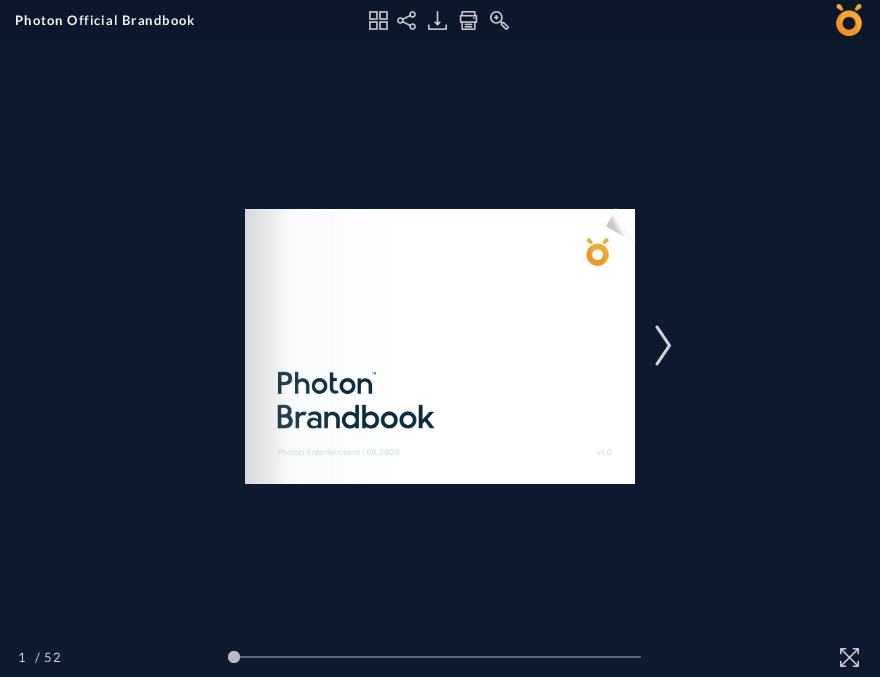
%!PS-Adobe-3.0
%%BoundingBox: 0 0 880 677
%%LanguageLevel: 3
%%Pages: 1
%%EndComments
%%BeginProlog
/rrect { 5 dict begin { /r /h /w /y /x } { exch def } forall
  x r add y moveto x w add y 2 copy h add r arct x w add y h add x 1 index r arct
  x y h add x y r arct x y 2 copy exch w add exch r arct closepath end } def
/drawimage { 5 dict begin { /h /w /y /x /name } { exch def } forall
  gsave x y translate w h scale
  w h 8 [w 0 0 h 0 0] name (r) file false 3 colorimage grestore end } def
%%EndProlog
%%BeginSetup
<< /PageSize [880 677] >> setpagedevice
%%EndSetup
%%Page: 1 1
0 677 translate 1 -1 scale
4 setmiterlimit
0.051 0.102 0.188 setrgbcolor
0 0 880 677 rectfill
0.047 0.09 0.169 setrgbcolor
0 0 880 40 rectfill
(images/1.raw) 369 11 19 19 drawimage
(images/2.raw) 397 11 19 19 drawimage
(images/3.raw) 428 11 19 19 drawimage
(images/4.raw) 459 11 19 19 drawimage
(images/5.raw) 490 11 19 19 drawimage
(images/6.raw) 836 4 26 32 drawimage
1 setgray
245 209 390 275 rectfill
(images/9.raw) 245 209 367 275 drawimage
newpath 606 225.5 moveto 616 208.5 lineto 635 242.5 lineto closepath fill
(images/7.raw) 607 210 29 34 drawimage
(images/8.raw) 606 215 19 22 drawimage
(images/10.raw) 245 209 88 275 drawimage
0.812 0.82 0.839 setrgbcolor
2.7 setlinewidth
1 setlinecap
1 setlinejoin
newpath 669.5 345.5 moveto 657 327 lineto 669.5 345.5 moveto 657 364 lineto stroke
0.384 0.416 0.475 setrgbcolor
228 656 413 2 1 rrect fill
0.714 0.729 0.757 setrgbcolor
newpath 234 657 6 0 360 arc closepath fill
(images/11.raw) 840 648 19 19 drawimage
/Lato-Bold [13 0 0 -13 0 0] selectfont
0.953 0.953 0.957 setrgbcolor
15 25 moveto 1 0 (Photon Official Brandbook) ashow
/Lato-Regular [13 0 0 -13 0 0] selectfont
0.812 0.82 0.839 setrgbcolor
18 662 moveto 1 0 (1) ashow
35 662 moveto 1 0 (/ 52) ashow
showpage
%%EOF
